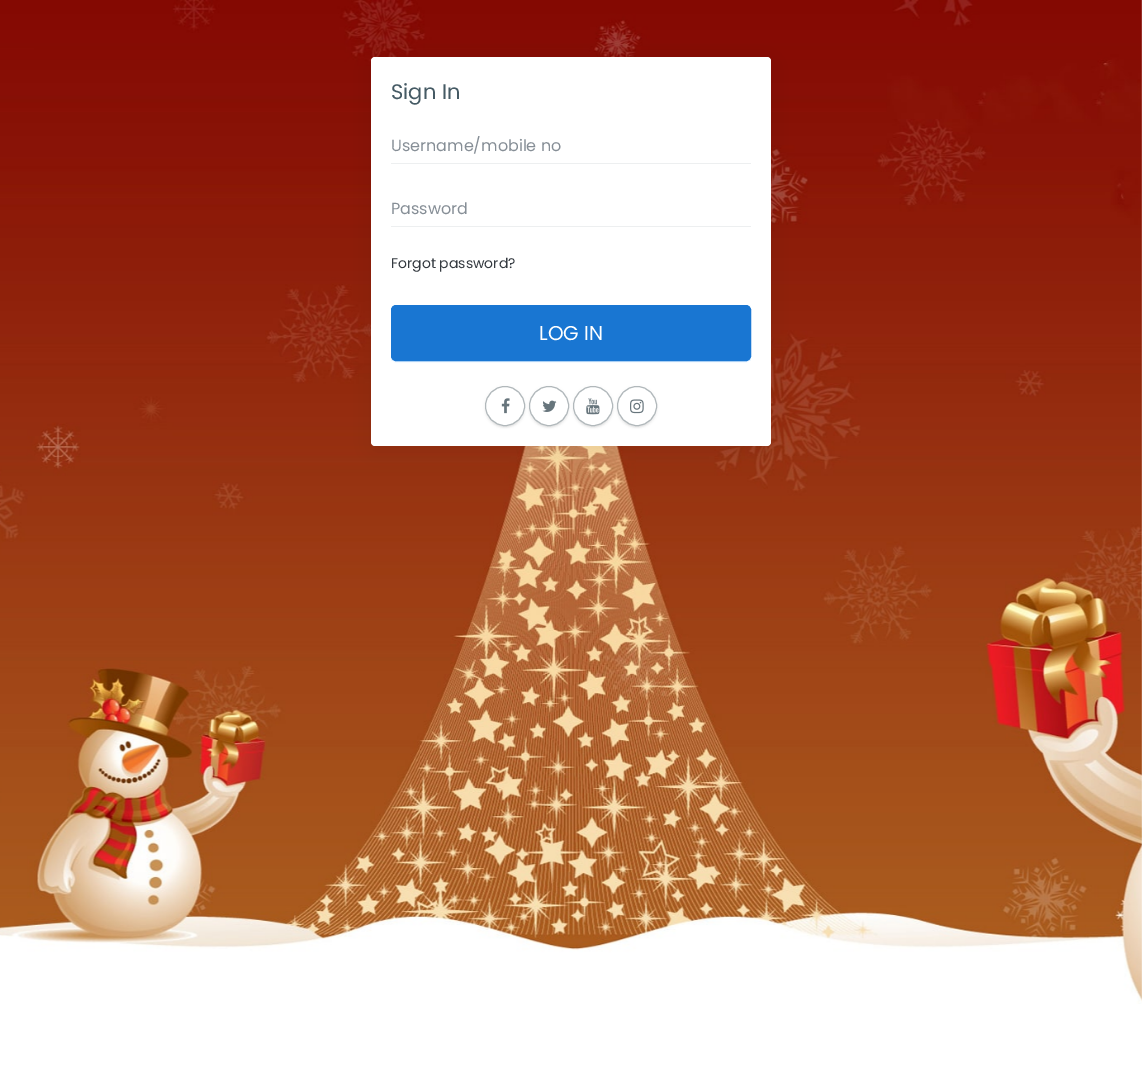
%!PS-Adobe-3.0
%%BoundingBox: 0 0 1142 1091
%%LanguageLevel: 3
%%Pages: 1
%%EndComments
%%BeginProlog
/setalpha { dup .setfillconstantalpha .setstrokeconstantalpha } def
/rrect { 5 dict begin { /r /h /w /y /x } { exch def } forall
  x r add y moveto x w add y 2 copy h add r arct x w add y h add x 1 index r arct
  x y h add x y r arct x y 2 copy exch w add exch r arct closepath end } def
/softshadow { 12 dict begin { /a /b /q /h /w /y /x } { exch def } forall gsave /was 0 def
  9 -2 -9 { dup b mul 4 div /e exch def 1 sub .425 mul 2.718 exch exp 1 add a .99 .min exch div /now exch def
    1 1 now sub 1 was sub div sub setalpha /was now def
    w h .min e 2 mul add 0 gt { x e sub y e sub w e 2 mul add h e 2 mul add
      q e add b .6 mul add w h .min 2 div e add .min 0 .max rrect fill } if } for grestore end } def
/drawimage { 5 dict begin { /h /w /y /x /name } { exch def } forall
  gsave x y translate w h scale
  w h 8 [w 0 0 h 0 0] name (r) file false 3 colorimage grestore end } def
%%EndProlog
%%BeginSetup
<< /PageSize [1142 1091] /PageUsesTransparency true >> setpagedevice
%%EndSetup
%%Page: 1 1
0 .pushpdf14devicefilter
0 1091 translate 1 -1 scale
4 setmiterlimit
1 setgray
0 0 1142 1091 rectfill
(images/1.raw) 0 0 1142 1004 drawimage
0 setgray
371 62 400 389 4 10 0.05 softshadow
1 setgray
371 57 400 389 4 rrect fill
0.929 0.937 0.941 setrgbcolor
391 163 360 1 rectfill
391 226 360 1 rectfill
gsave
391 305 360 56 rectclip
0.259 0.647 0.961 setrgbcolor
391 306 360 56 5 2.5 0.12 softshadow
grestore
0.259 0.647 0.961 setrgbcolor
393 310 356 52 3 0.5 0.2 softshadow
gsave
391 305 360 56 rectclip
391 307 360 56 5 1 0.14 softshadow
grestore
0.098 0.463 0.824 setrgbcolor
391.5 305.5 359 55 4.5 rrect gsave fill grestore
stroke
0.663 setgray
485 387 40 40 20 2.5 0.12 softshadow
487 391 36 36 18 0.5 0.2 softshadow
485 388 40 40 20 1 0.14 softshadow
1 setgray
newpath 505 406 19.5 0 360 arc closepath gsave fill grestore
0.694 0.722 0.733 setrgbcolor
stroke
(images/2.raw) 501 398 9 16 drawimage
0.663 setgray
529 387 40 40 20 2.5 0.12 softshadow
531 391 36 36 18 0.5 0.2 softshadow
529 388 40 40 20 1 0.14 softshadow
1 setgray
newpath 549 406 19.5 0 360 arc closepath gsave fill grestore
0.694 0.722 0.733 setrgbcolor
stroke
(images/3.raw) 542 400 15 12 drawimage
0.663 setgray
573 387 40 40 20 2.5 0.12 softshadow
575 391 36 36 18 0.5 0.2 softshadow
573 388 40 40 20 1 0.14 softshadow
1 setgray
newpath 593 406 19.5 0 360 arc closepath gsave fill grestore
0.694 0.722 0.733 setrgbcolor
stroke
(images/4.raw) 586 398 14 17 drawimage
0.663 setgray
617 387 40 40 20 2.5 0.12 softshadow
619 391 36 36 18 0.5 0.2 softshadow
617 388 40 40 20 1 0.14 softshadow
1 setgray
newpath 637 406 19.5 0 360 arc closepath gsave fill grestore
0.694 0.722 0.733 setrgbcolor
stroke
(images/5.raw) 630 399 14 15 drawimage
/Poppins-Regular [21 0 0 -21 0 0] selectfont
0.271 0.353 0.392 setrgbcolor
391 99 moveto (Sign In) show
/Poppins-Regular [16 0 0 -16 0 0] selectfont
0.525 0.557 0.588 setrgbcolor
391 151 moveto (Username/mobile no) show
391 214 moveto (Password) show
/Poppins-Regular [14 0 0 -14 0 0] selectfont
0.204 0.227 0.251 setrgbcolor
391 268 moveto (Forgot password?) show
/Poppins-Regular [20 0 0 -20 0 0] selectfont
1 setgray
539 340 moveto (LOG IN) show
.poppdf14devicefilter showpage
%%EOF
